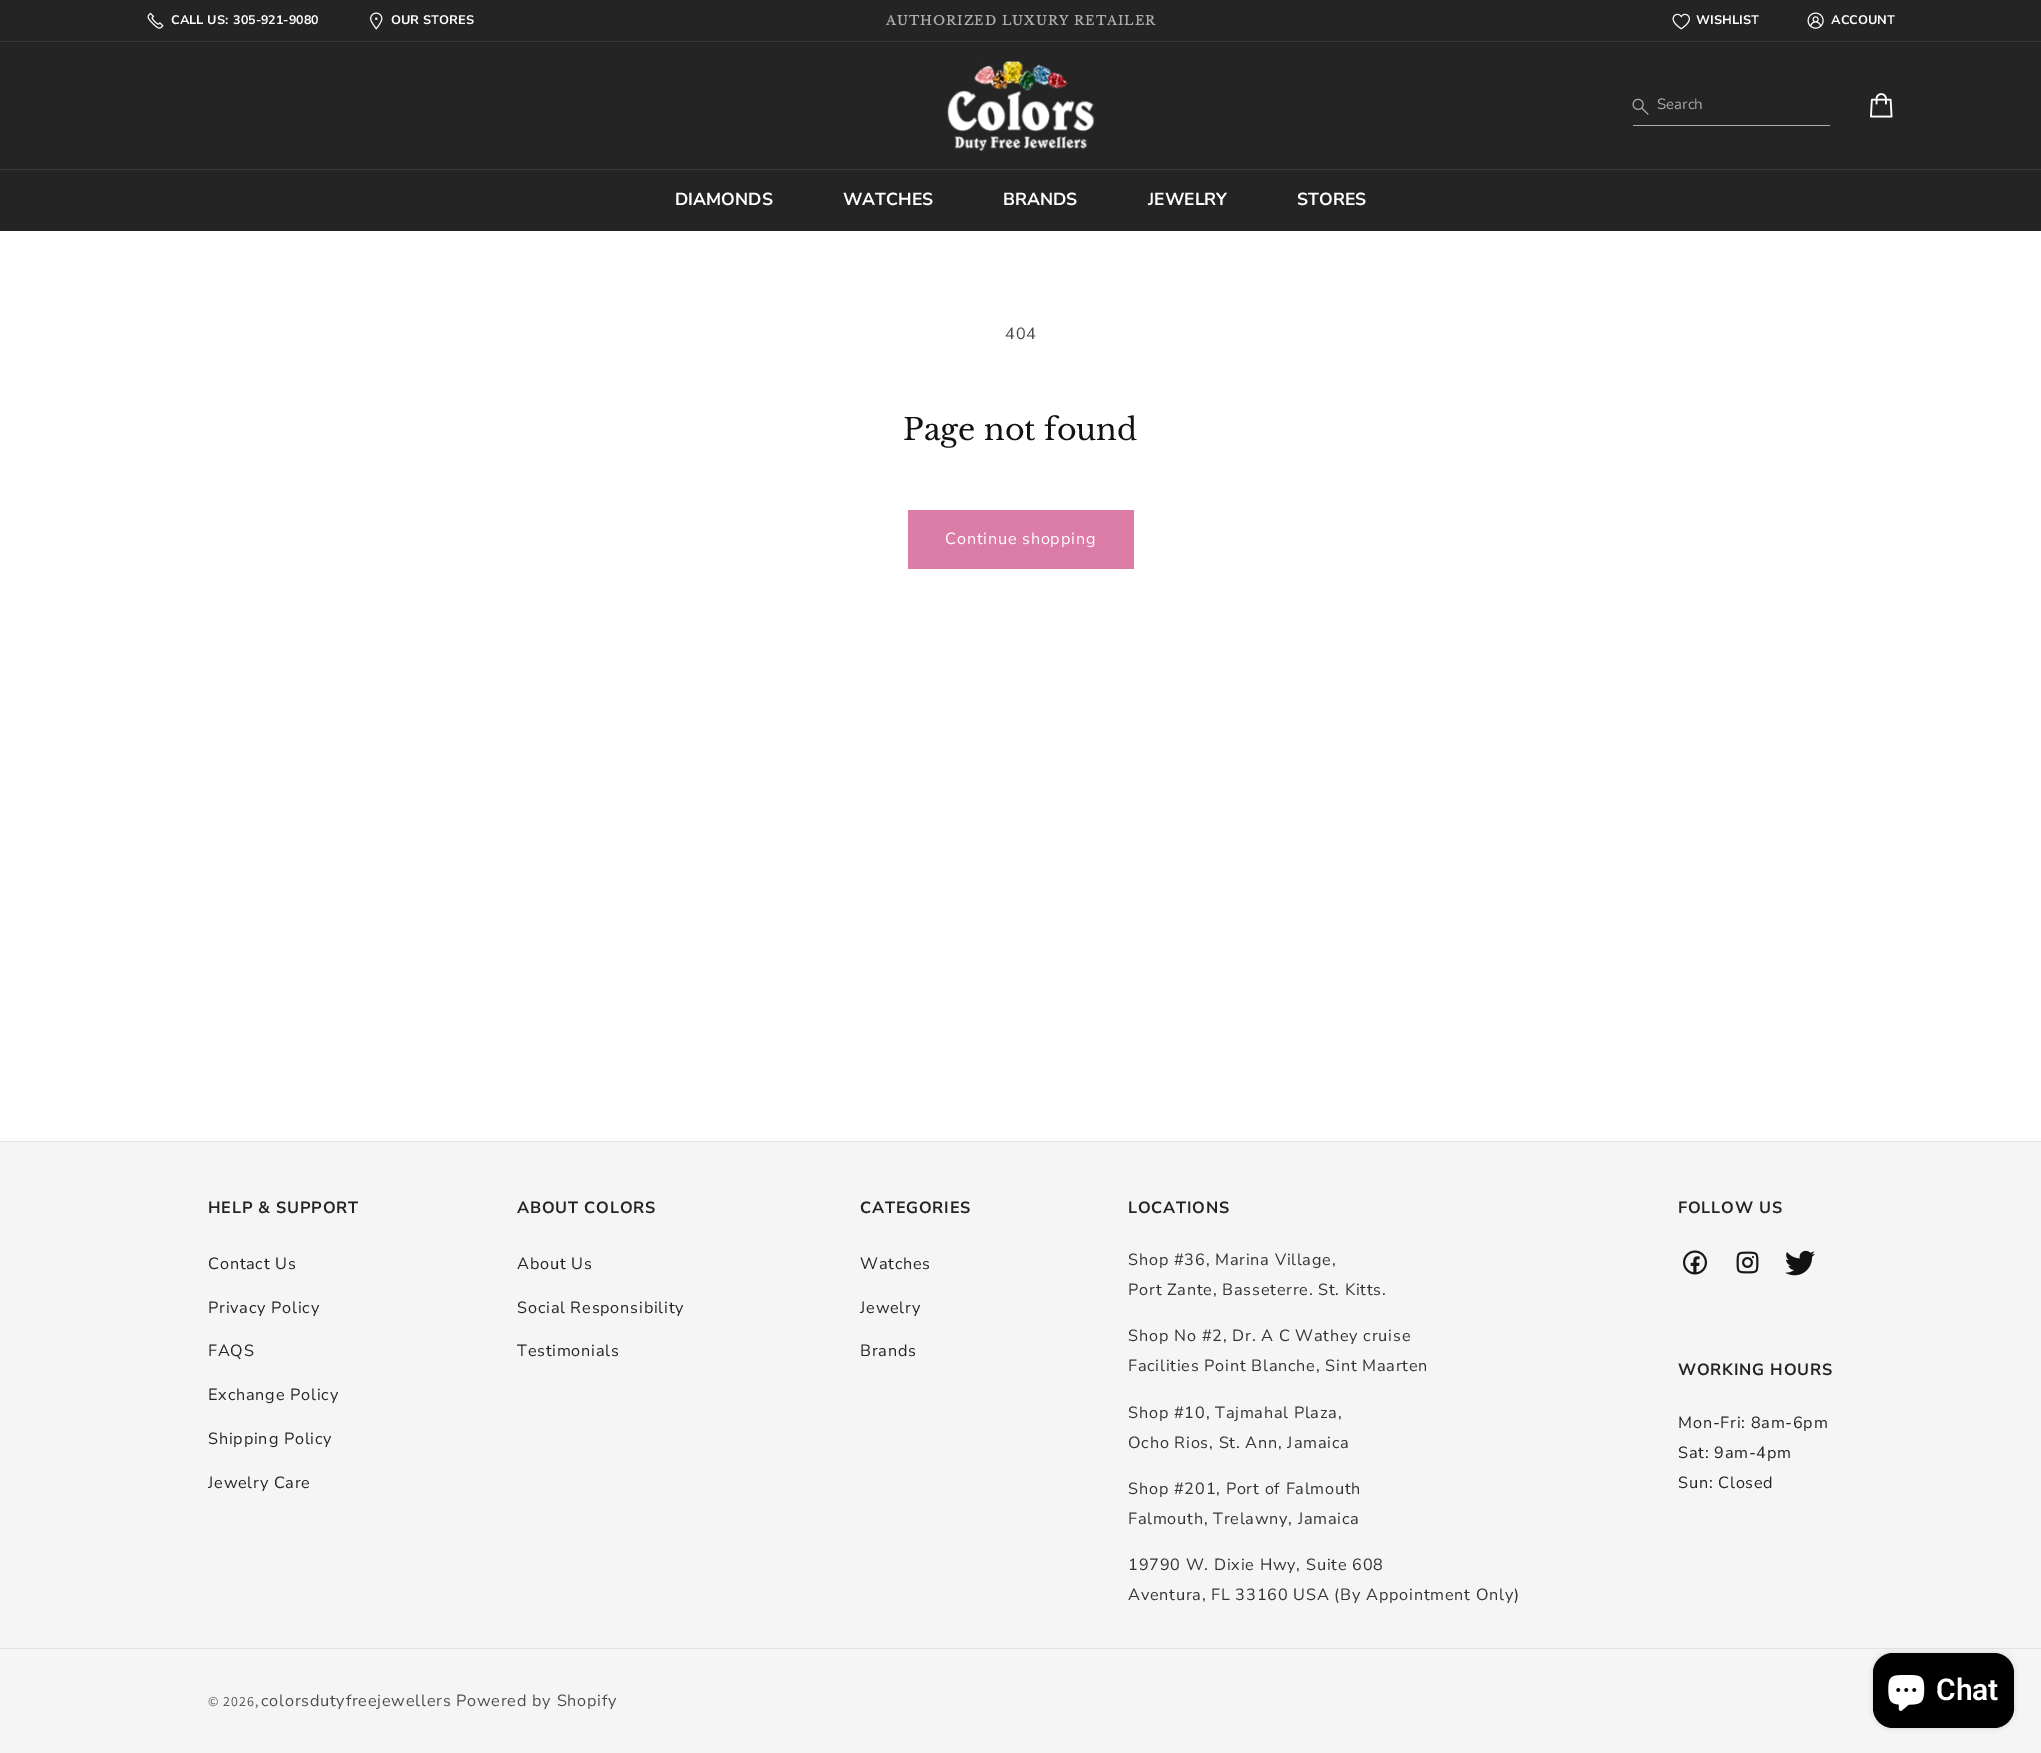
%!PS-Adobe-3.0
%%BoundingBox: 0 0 2041 1753
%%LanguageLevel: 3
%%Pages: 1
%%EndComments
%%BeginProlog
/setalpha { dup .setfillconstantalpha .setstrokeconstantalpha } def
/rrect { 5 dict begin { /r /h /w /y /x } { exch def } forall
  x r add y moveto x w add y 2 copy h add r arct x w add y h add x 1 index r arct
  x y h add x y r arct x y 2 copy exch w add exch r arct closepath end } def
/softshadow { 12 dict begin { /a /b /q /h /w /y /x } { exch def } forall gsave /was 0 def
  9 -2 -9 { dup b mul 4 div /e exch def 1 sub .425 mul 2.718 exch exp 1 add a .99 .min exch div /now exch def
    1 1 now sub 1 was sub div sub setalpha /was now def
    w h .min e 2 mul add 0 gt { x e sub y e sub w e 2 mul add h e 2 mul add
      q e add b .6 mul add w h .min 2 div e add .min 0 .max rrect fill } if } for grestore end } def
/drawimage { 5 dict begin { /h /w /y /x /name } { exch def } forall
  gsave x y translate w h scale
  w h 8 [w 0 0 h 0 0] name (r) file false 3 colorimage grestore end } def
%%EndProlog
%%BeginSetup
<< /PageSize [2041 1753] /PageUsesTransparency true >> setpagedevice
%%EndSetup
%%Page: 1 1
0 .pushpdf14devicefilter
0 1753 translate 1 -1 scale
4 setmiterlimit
1 setgray
0 0 2041 1753 rectfill
0.141 setgray
0 0 2041 231 rectfill
0.212 setgray
0 41 2041 1 rectfill
(images/1.raw) 147 12 17 17 drawimage
(images/2.raw) 370 12 13 18 drawimage
(images/3.raw) 1672 13 18 17 drawimage
(images/4.raw) 1807 12 17 17 drawimage
(images/5.raw) 947 61 148 90 drawimage
(images/6.raw) 1632 98 17 17 drawimage
0.675 setgray
1633 125 197 1 rectfill
(images/7.raw) 1870 93 23 25 drawimage
0.227 setgray
0 169 2041 1 rectfill
0.07 setalpha
0.09 0.09 0.094 setrgbcolor
1220 200 3 3 rectfill
1 setalpha
0.859 0.486 0.655 setrgbcolor
908 510 226 59 rectfill
0.961 setgray
0 1142 2041 611 rectfill
0.89 setgray
0 1141 2041 1 rectfill
(images/8.raw) 1683 1250 24 25 drawimage
(images/9.raw) 1736 1251 23 23 drawimage
(images/10.raw) 1785 1250 30 26 drawimage
0 1648 2041 1 rectfill
0 setgray
1873 1653 141 75 20 3 0.15 softshadow
1873 1653 141 75 20 rrect fill
(images/11.raw) 1888 1675 37 36 drawimage
/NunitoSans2-Bold [12.5 0 0 -12.5 0 0] selectfont
1 setgray
171 24 moveto (CALL US:) show
233 24 moveto (305-921-9080) show
391 24 moveto (OUR STORES) show
/LibreBaskerville-Bold [12.5 0 0 -12.5 0 0] selectfont
0.675 setgray
886 25 moveto 1.25 0 (AUTHORIZED LUXURY RETAILER) ashow
/NunitoSans2-Bold [12.5 0 0 -12.5 0 0] selectfont
1 setgray
1696 24 moveto (WISHLIST) show
1831 24 moveto (ACCOUNT) show
/NunitoSans-Regular [15 0 0 -15 0 0] selectfont
0.675 setgray
1657 109 moveto (Search) show
/NunitoSans-Bold [17.5 0 0 -17.5 0 0] selectfont
1 setgray
675 205 moveto (DIAMONDS) show
0.298 setgray
768 200 1 1 rectfill
1 setgray
843 205 moveto (WATCHES) show
0.239 setgray
928 200 1 1 rectfill
1 setgray
1003 205 moveto (BRANDS) show
0.341 setgray
1073 200 1 1 rectfill
1 setgray
1148 205 moveto (JEWELRY) show
1297 205 moveto (STORES) show
/NunitoSans-Regular [16.25 0 0 -16.25 0 0] selectfont
0.302 setgray
1005 339 moveto 0.8 0 (404) ashow
/LibreBaskerville-Regular [30 0 0 -30 0 0] selectfont
0.071 setgray
903 440 moveto (Page not found) show
/NunitoSans-Regular [16.25 0 0 -16.25 0 0] selectfont
1 setgray
945 544 moveto 0.8 0 (Continue shopping) ashow
/NunitoSans-Bold [16.25 0 0 -16.25 0 0] selectfont
0.141 setgray
208 1213 moveto 0.8 0 (HELP & SUPPORT) ashow
/NunitoSans-Regular [16.25 0 0 -16.25 0 0] selectfont
208 1269 moveto 0.8 0 (Contact Us) ashow
208 1313 moveto 0.8 0 (Privacy Policy) ashow
208 1356 moveto 0.8 0 (FAQS) ashow
208 1400 moveto 0.8 0 (Exchange Policy) ashow
208 1444 moveto 0.8 0 (Shipping Policy) ashow
208 1488 moveto 0.8 0 (Jewelry Care) ashow
/NunitoSans-Bold [16.25 0 0 -16.25 0 0] selectfont
517 1213 moveto 0.8 0 (ABOUT COLORS) ashow
/NunitoSans-Regular [16.25 0 0 -16.25 0 0] selectfont
517 1269 moveto 0.8 0 (About Us) ashow
517 1313 moveto 0.8 0 (Social Responsibility) ashow
517 1356 moveto 0.8 0 (Testimonials) ashow
/NunitoSans-Bold [16.25 0 0 -16.25 0 0] selectfont
860 1213 moveto 0.8 0 (CATEGORIES) ashow
/NunitoSans-Regular [16.25 0 0 -16.25 0 0] selectfont
860 1269 moveto 0.8 0 (Watches) ashow
860 1313 moveto 0.8 0 (Jewelry) ashow
860 1356 moveto 0.8 0 (Brands) ashow
/NunitoSans-Bold [16.25 0 0 -16.25 0 0] selectfont
1128 1213 moveto 0.8 0 (LOCATIONS) ashow
/NunitoSans-Regular [16.25 0 0 -16.25 0 0] selectfont
0.204 setgray
1128 1265 moveto 0.8 0 (Shop #36, Marina Village,) ashow
1128 1295 moveto 0.8 0 (Port Zante, Basseterre. St. Kitts.) ashow
1128 1341 moveto 0.8 0 (Shop No #2, Dr. A C Wathey cruise) ashow
1128 1371 moveto 0.8 0 (Facilities Point Blanche, Sint Maarten) ashow
1128 1418 moveto 0.8 0 (Shop #10, Tajmahal Plaza,) ashow
1128 1448 moveto 0.8 0 (Ocho Rios, St. Ann, Jamaica) ashow
1128 1494 moveto 0.8 0 (Shop #201, Port of Falmouth) ashow
1128 1524 moveto 0.8 0 (Falmouth, Trelawny, Jamaica) ashow
1128 1570 moveto 0.8 0 (19790 W. Dixie Hwy, Suite 608) ashow
1128 1600 moveto 0.8 0 (Aventura, FL 33160 USA \(By Appointment Only\)) ashow
/NunitoSans-Bold [16.25 0 0 -16.25 0 0] selectfont
0.141 setgray
1678 1213 moveto 0.8 0 (FOLLOW US) ashow
1678 1375 moveto 0.8 0 (WORKING HOURS) ashow
/NunitoSans-Regular [16.25 0 0 -16.25 0 0] selectfont
1678 1428 moveto 0.8 0 (Mon-Fri: 8am-6pm) ashow
1678 1458 moveto 0.8 0 (Sat: 9am-4pm) ashow
1678 1488 moveto 0.8 0 (Sun: Closed) ashow
/Assistant-Regular [14 0 0 -14 0 0] selectfont
0.302 setgray
208 1706 moveto 1 0 (© 2026,) ashow
/NunitoSans-Regular [16.25 0 0 -16.25 0 0] selectfont
261 1706 moveto 0.8 0 (colorsdutyfreejewellers) ashow
456 1706 moveto 0.8 0 (Powered by Shopify) ashow
/Roboto-SemiBold [30 0 0 -30 0 0] selectfont
1 setgray
1936 1700 moveto (Chat) show
.poppdf14devicefilter showpage
%%EOF
